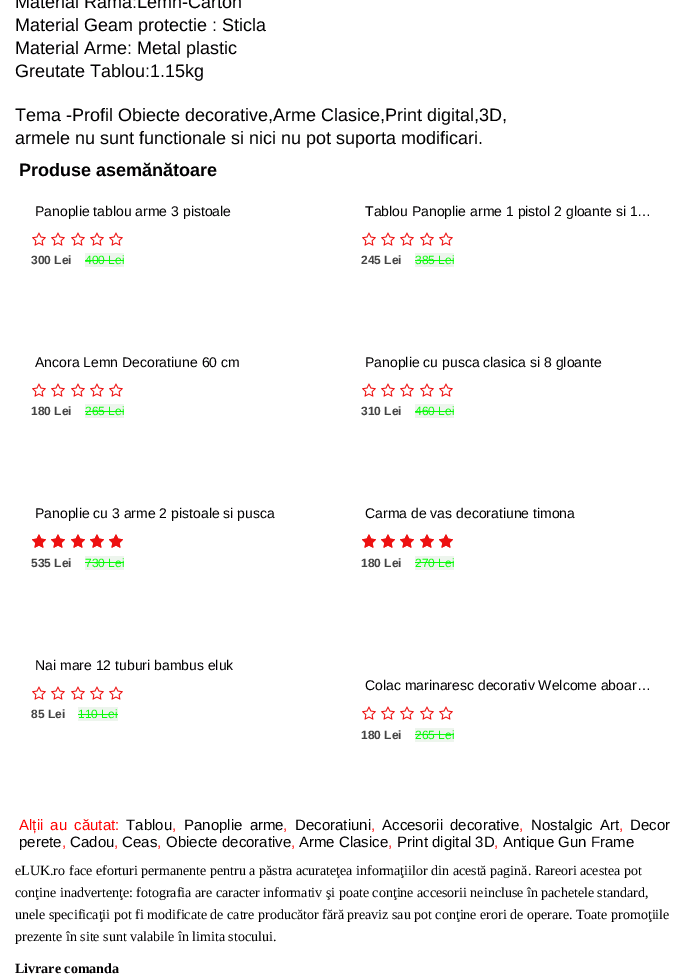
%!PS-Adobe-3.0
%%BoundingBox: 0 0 689 974
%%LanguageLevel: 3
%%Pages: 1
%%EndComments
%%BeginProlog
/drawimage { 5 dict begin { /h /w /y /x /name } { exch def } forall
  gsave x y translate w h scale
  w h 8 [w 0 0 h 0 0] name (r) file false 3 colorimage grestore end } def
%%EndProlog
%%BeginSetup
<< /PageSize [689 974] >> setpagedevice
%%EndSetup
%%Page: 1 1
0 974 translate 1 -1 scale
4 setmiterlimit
1 setgray
0 0 689 974 rectfill
(images/1.raw) 32 232 14 14 drawimage
(images/1.raw) 51 232 14 14 drawimage
(images/1.raw) 71 232 14 14 drawimage
(images/1.raw) 90 232 14 14 drawimage
(images/1.raw) 109 232 14 14 drawimage
0.929 0.961 0.929 setrgbcolor
85 253 39 14 rectfill
0.035 0.984 0.035 setrgbcolor
85 260 39 1 rectfill
(images/1.raw) 362 232 14 14 drawimage
(images/1.raw) 381 232 14 14 drawimage
(images/1.raw) 400 232 14 14 drawimage
(images/1.raw) 420 232 14 14 drawimage
(images/1.raw) 439 232 14 14 drawimage
0.929 0.961 0.929 setrgbcolor
415 253 39 14 rectfill
0.035 0.984 0.035 setrgbcolor
415 260 39 1 rectfill
(images/1.raw) 32 383 14 14 drawimage
(images/1.raw) 51 383 14 14 drawimage
(images/1.raw) 71 383 14 14 drawimage
(images/1.raw) 90 383 14 14 drawimage
(images/1.raw) 109 383 14 14 drawimage
0.929 0.961 0.929 setrgbcolor
85 404 39 14 rectfill
0.035 0.984 0.035 setrgbcolor
85 411 39 1 rectfill
(images/1.raw) 362 383 14 14 drawimage
(images/1.raw) 381 383 14 14 drawimage
(images/1.raw) 400 383 14 14 drawimage
(images/1.raw) 420 383 14 14 drawimage
(images/1.raw) 439 383 14 14 drawimage
0.929 0.961 0.929 setrgbcolor
415 404 39 14 rectfill
0.035 0.984 0.035 setrgbcolor
415 411 39 1 rectfill
(images/2.raw) 32 534 14 14 drawimage
(images/3.raw) 32 534 14 14 drawimage
(images/2.raw) 51 534 14 14 drawimage
(images/3.raw) 51 534 14 14 drawimage
(images/2.raw) 71 534 14 14 drawimage
(images/3.raw) 71 534 14 14 drawimage
(images/2.raw) 90 534 14 14 drawimage
(images/3.raw) 90 534 14 14 drawimage
(images/2.raw) 109 534 14 14 drawimage
(images/3.raw) 109 534 14 14 drawimage
0.929 0.961 0.929 setrgbcolor
85 556 39 14 rectfill
0.035 0.984 0.035 setrgbcolor
85 562 39 1 rectfill
(images/2.raw) 362 534 14 14 drawimage
(images/3.raw) 362 534 14 14 drawimage
(images/2.raw) 381 534 14 14 drawimage
(images/3.raw) 381 534 14 14 drawimage
(images/2.raw) 400 534 14 14 drawimage
(images/3.raw) 400 534 14 14 drawimage
(images/2.raw) 420 534 14 14 drawimage
(images/3.raw) 420 534 14 14 drawimage
(images/2.raw) 439 534 14 14 drawimage
(images/3.raw) 439 534 14 14 drawimage
0.929 0.961 0.929 setrgbcolor
415 556 39 14 rectfill
0.035 0.984 0.035 setrgbcolor
415 562 39 1 rectfill
(images/1.raw) 32 686 14 14 drawimage
(images/1.raw) 51 686 14 14 drawimage
(images/1.raw) 71 686 14 14 drawimage
(images/1.raw) 90 686 14 14 drawimage
(images/1.raw) 109 686 14 14 drawimage
0.929 0.961 0.929 setrgbcolor
78 707 40 14 rectfill
0.035 0.984 0.035 setrgbcolor
78 714 40 1 rectfill
(images/1.raw) 362 706 14 14 drawimage
(images/1.raw) 381 706 14 14 drawimage
(images/1.raw) 400 706 14 14 drawimage
(images/1.raw) 420 706 14 14 drawimage
(images/1.raw) 439 706 14 14 drawimage
0.929 0.961 0.929 setrgbcolor
415 728 39 14 rectfill
0.035 0.984 0.035 setrgbcolor
415 734 39 1 rectfill
/LiberationSans-Regular [18 0 0 -18 0 0] selectfont
0.004 0 0.004 setrgbcolor
15 8 moveto (Material Rama:Lemn-Carton) show
15 31 moveto (Material Geam protectie : Sticla) show
15 54 moveto (Material Arme: Metal plastic) show
15 77 moveto (Greutate Tablou:1.15kg) show
15 121 moveto (Tema -Profil Obiecte decorative,Arme Clasice,Print digital,3D,) show
15 144 moveto (armele nu sunt functionale si nici nu pot suporta modificari.) show
/LiberationSans-Bold [18 0 0 -18 0 0] selectfont
19 176 moveto (Produse asemănătoare) show
/LiberationSans-Regular [14 0 0 -14 0 0] selectfont
35 216 moveto (Panoplie tablou arme 3 pistoale) show
/LiberationSans-Bold [12 0 0 -12 0 0] selectfont
0.267 setgray
31 264 moveto (300 Lei) show
/LiberationSans-Regular [12 0 0 -12 0 0] selectfont
0.035 0.984 0.035 setrgbcolor
85 264 moveto (400 Lei) show
/LiberationSans-Regular [14 0 0 -14 0 0] selectfont
0.004 0 0.004 setrgbcolor
365 216 moveto (Tablou Panoplie arme 1 pistol 2 gloante si 1…) show
/LiberationSans-Bold [12 0 0 -12 0 0] selectfont
0.267 setgray
361 264 moveto (245 Lei) show
/LiberationSans-Regular [12 0 0 -12 0 0] selectfont
0.035 0.984 0.035 setrgbcolor
415 264 moveto (385 Lei) show
/LiberationSans-Regular [14 0 0 -14 0 0] selectfont
0.004 0 0.004 setrgbcolor
35 367 moveto (Ancora Lemn Decoratiune 60 cm) show
/LiberationSans-Bold [12 0 0 -12 0 0] selectfont
0.267 setgray
31 415 moveto (180 Lei) show
/LiberationSans-Regular [12 0 0 -12 0 0] selectfont
0.035 0.984 0.035 setrgbcolor
85 415 moveto (265 Lei) show
/LiberationSans-Regular [14 0 0 -14 0 0] selectfont
0.004 0 0.004 setrgbcolor
365 367 moveto (Panoplie cu pusca clasica si 8 gloante) show
/LiberationSans-Bold [12 0 0 -12 0 0] selectfont
0.267 setgray
361 415 moveto (310 Lei) show
/LiberationSans-Regular [12 0 0 -12 0 0] selectfont
0.035 0.984 0.035 setrgbcolor
415 415 moveto (460 Lei) show
/LiberationSans-Regular [14 0 0 -14 0 0] selectfont
0.004 0 0.004 setrgbcolor
35 518 moveto (Panoplie cu 3 arme 2 pistoale si pusca) show
/LiberationSans-Bold [12 0 0 -12 0 0] selectfont
0.267 setgray
31 567 moveto (535 Lei) show
/LiberationSans-Regular [12 0 0 -12 0 0] selectfont
0.035 0.984 0.035 setrgbcolor
85 567 moveto (730 Lei) show
/LiberationSans-Regular [14 0 0 -14 0 0] selectfont
0.004 0 0.004 setrgbcolor
365 518 moveto (Carma de vas decoratiune timona) show
/LiberationSans-Bold [12 0 0 -12 0 0] selectfont
0.267 setgray
361 567 moveto (180 Lei) show
/LiberationSans-Regular [12 0 0 -12 0 0] selectfont
0.035 0.984 0.035 setrgbcolor
415 567 moveto (270 Lei) show
/LiberationSans-Regular [14 0 0 -14 0 0] selectfont
0.004 0 0.004 setrgbcolor
35 670 moveto (Nai mare 12 tuburi bambus eluk) show
/LiberationSans-Bold [12 0 0 -12 0 0] selectfont
0.267 setgray
31 718 moveto (85 Lei) show
/LiberationSans-Regular [12 0 0 -12 0 0] selectfont
0.035 0.984 0.035 setrgbcolor
78 718 moveto (110 Lei) show
/LiberationSans-Regular [14 0 0 -14 0 0] selectfont
0.004 0 0.004 setrgbcolor
365 690 moveto (Colac marinaresc decorativ Welcome aboar…) show
/LiberationSans-Bold [12 0 0 -12 0 0] selectfont
0.267 setgray
361 739 moveto (180 Lei) show
/LiberationSans-Regular [12 0 0 -12 0 0] selectfont
0.035 0.984 0.035 setrgbcolor
415 739 moveto (265 Lei) show
/LiberationSans-Regular [15 0 0 -15 0 0] selectfont
1 0 0 setrgbcolor
19 830 moveto 3 0 32 (Alții au căutat:) widthshow
0.004 0 0.004 setrgbcolor
126 830 moveto (Tablou) show
1 0 0 setrgbcolor
172 830 moveto (,) show
0.004 0 0.004 setrgbcolor
184 830 moveto 3 0 32 (Panoplie arme) widthshow
1 0 0 setrgbcolor
283 830 moveto (,) show
0.004 0 0.004 setrgbcolor
295 830 moveto (Decoratiuni) show
1 0 0 setrgbcolor
371 830 moveto (,) show
0.004 0 0.004 setrgbcolor
382 830 moveto 3 0 32 (Accesorii decorative) widthshow
1 0 0 setrgbcolor
519 830 moveto (,) show
0.004 0 0.004 setrgbcolor
531 830 moveto 3 0 32 (Nostalgic Art) widthshow
1 0 0 setrgbcolor
619 830 moveto (,) show
0.004 0 0.004 setrgbcolor
630 830 moveto (Decor) show
19 847 moveto (perete) show
1 0 0 setrgbcolor
62 847 moveto (,) show
0.004 0 0.004 setrgbcolor
70 847 moveto (Cadou) show
1 0 0 setrgbcolor
114 847 moveto (,) show
0.004 0 0.004 setrgbcolor
122 847 moveto (Ceas) show
1 0 0 setrgbcolor
157 847 moveto (,) show
0.004 0 0.004 setrgbcolor
166 847 moveto (Obiecte decorative) show
1 0 0 setrgbcolor
291 847 moveto (,) show
0.004 0 0.004 setrgbcolor
299 847 moveto (Arme Clasice) show
1 0 0 setrgbcolor
388 847 moveto (,) show
0.004 0 0.004 setrgbcolor
397 847 moveto (Print digital 3D) show
1 0 0 setrgbcolor
494 847 moveto (,) show
0.004 0 0.004 setrgbcolor
503 847 moveto (Antique Gun Frame) show
/LiberationSerif-Regular [14 0 0 -14 0 0] selectfont
15 875 moveto (eLUK.ro) show
69 875 moveto (face eforturi permanente pentru a păstra acurateţea informaţiilor din acestă pagină. Rareori acestea pot) show
15 897 moveto (conţine inadvertenţe: fotografia are caracter informativ şi poate conţine accesorii neincluse în pachetele standard,) show
15 919 moveto (unele specificaţii pot fi modificate de catre producător fără preaviz sau pot conţine erori de operare. Toate promoţiile) show
15 941 moveto (prezente în site sunt valabile în limita stocului.) show
/LiberationSerif-Bold [14 0 0 -14 0 0] selectfont
15 973 moveto (Livrare comanda) show
showpage
%%EOF
